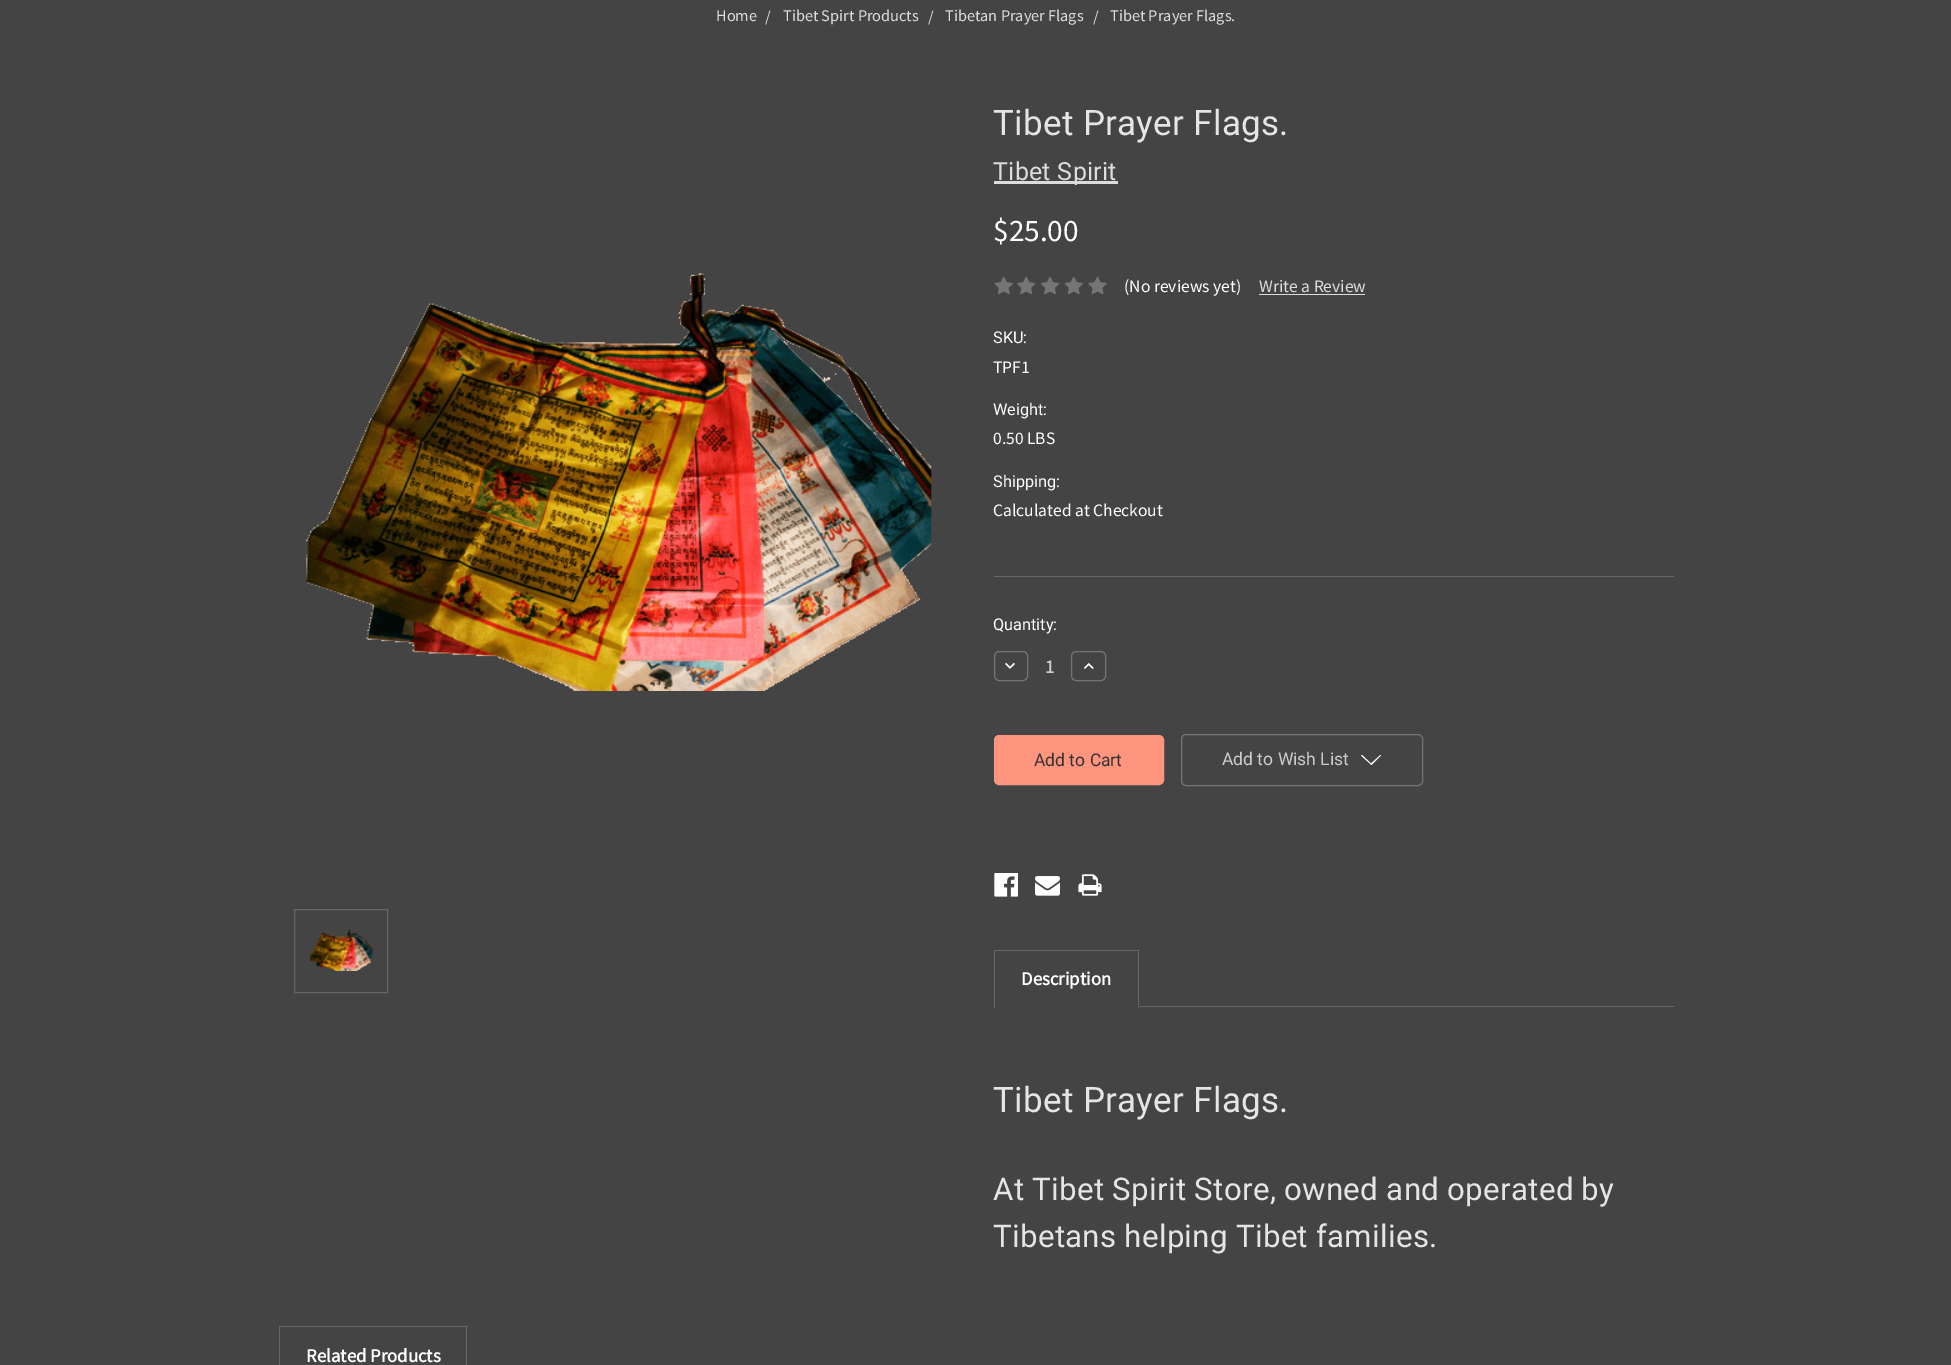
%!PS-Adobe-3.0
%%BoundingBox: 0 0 1951 1365
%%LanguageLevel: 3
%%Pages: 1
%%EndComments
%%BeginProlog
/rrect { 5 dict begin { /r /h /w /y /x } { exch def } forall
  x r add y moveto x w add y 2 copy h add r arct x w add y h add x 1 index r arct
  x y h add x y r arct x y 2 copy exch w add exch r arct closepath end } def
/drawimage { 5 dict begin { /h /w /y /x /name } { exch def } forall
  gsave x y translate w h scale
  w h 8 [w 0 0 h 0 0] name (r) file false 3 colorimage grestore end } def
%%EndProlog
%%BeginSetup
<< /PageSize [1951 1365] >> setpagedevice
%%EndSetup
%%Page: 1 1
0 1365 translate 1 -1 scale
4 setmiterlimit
0.267 setgray
0 0 1951 1365 rectfill
(images/1.raw) 306 273 626 418 drawimage
0.4 setgray
294.5 909.5 93 83 rectstroke
(images/2.raw) 310 929 63 42 drawimage
994 576 680 1 rectfill
0.867 setgray
994 181 124 3 rectfill
(images/3.raw) 994 276 19 19 drawimage
(images/4.raw) 1017 276 19 19 drawimage
(images/5.raw) 1040 276 20 19 drawimage
(images/3.raw) 1064 276 19 19 drawimage
(images/6.raw) 1088 276 19 19 drawimage
1259 294 106 1 rectfill
0.459 setgray
994.5 651.5 33 29 4.5 rrect stroke
(images/7.raw) 1005 662 10 7 drawimage
1071.5 651.5 34 29 4.5 rrect stroke
(images/8.raw) 1083 663 11 6 drawimage
1 0.584 0.498 setrgbcolor
994.5 735.5 169 49 4.5 rrect gsave fill grestore
stroke
0.459 setgray
1181.5 734.5 241 51 4.5 rrect stroke
1 setgray
newpath 1371 763.5 moveto 1380.5 755 lineto 1381 755.5 lineto 1371.5 765 lineto 1361 755.5 lineto 1362 755 lineto closepath eofill
(images/9.raw) 994 873 24 24 drawimage
(images/10.raw) 1035 876 25 20 drawimage
(images/11.raw) 1078 874 24 22 drawimage
0.4 setgray
1139 1006 535 1 rectfill
994 950 145 1 rectfill
1138 950 1 58 rectfill
0.267 setgray
1138 1006 1 1 rectfill
0.4 setgray
994 950 1 58 rectfill
279 1326 189 1 rectfill
466 1326 1 39 rectfill
279 1326 1 39 rectfill
/SourceSansPro-Regular [16.25 0 0 -16.25 0 0] selectfont
0.867 setgray
716 21 moveto (Home) show
765 22 moveto (/) show
783 21 moveto (Tibet Spirt Products) show
928 22 moveto (/) show
945 21 moveto (Tibetan Prayer Flags) show
1093 22 moveto (/) show
1110 21 moveto (Tibet Prayer Flags.) show
/Roboto-Regular [35 0 0 -35 0 0] selectfont
0.898 setgray
993 135 moveto 0.3 0 (Tibet Prayer Flags.) ashow
/Roboto-Regular [25 0 0 -25 0 0] selectfont
0.867 setgray
993 180 moveto 0.3 0 (Tibet Spirit) ashow
/SourceSansPro-Regular [31.25 0 0 -31.25 0 0] selectfont
1 setgray
993 241 moveto ($25.00) show
/SourceSansPro-Regular [17.5 0 0 -17.5 0 0] selectfont
1124 292 moveto (\(No reviews yet\)) show
0.867 setgray
1259 292 moveto (Write a Review) show
/Roboto-Regular [16.25 0 0 -16.25 0 0] selectfont
1 setgray
993 343 moveto (SKU:) show
/SourceSansPro-Regular [17.5 0 0 -17.5 0 0] selectfont
993 373 moveto (TPF1) show
/Roboto-Regular [16.25 0 0 -16.25 0 0] selectfont
993 415 moveto (Weight:) show
/SourceSansPro-Regular [17.5 0 0 -17.5 0 0] selectfont
993 444 moveto (0.50 LBS) show
/Roboto-Regular [16.25 0 0 -16.25 0 0] selectfont
993 487 moveto (Shipping:) show
/SourceSansPro-Regular [17.5 0 0 -17.5 0 0] selectfont
993 516 moveto (Calculated at Checkout) show
/Roboto-Regular [16.25 0 0 -16.25 0 0] selectfont
993 630 moveto (Quantity:) show
/SourceSansPro-Bold [18.75 0 0 -18.75 0 0] selectfont
0.8 setgray
1045 673 moveto (1) show
/Roboto-Regular [17.5 0 0 -17.5 0 0] selectfont
0.2 setgray
1034 766 moveto (Add to Cart) show
0.8 setgray
1222 765 moveto (Add to Wish List) show
/SourceSansPro-Bold [18.75 0 0 -18.75 0 0] selectfont
1 setgray
1021 985 moveto (Description) show
/Roboto-Regular [35 0 0 -35 0 0] selectfont
0.898 setgray
993 1112 moveto 0.3 0 (Tibet Prayer Flags.) ashow
/Roboto-Regular [31.25 0 0 -31.25 0 0] selectfont
993 1200 moveto 0.3 0 (At Tibet Spirit Store, owned and operated by) ashow
993 1247 moveto 0.3 0 (Tibetans helping Tibet families.) ashow
/SourceSansPro-Bold [18.75 0 0 -18.75 0 0] selectfont
1 setgray
306 1362 moveto (Related Products) show
showpage
%%EOF
